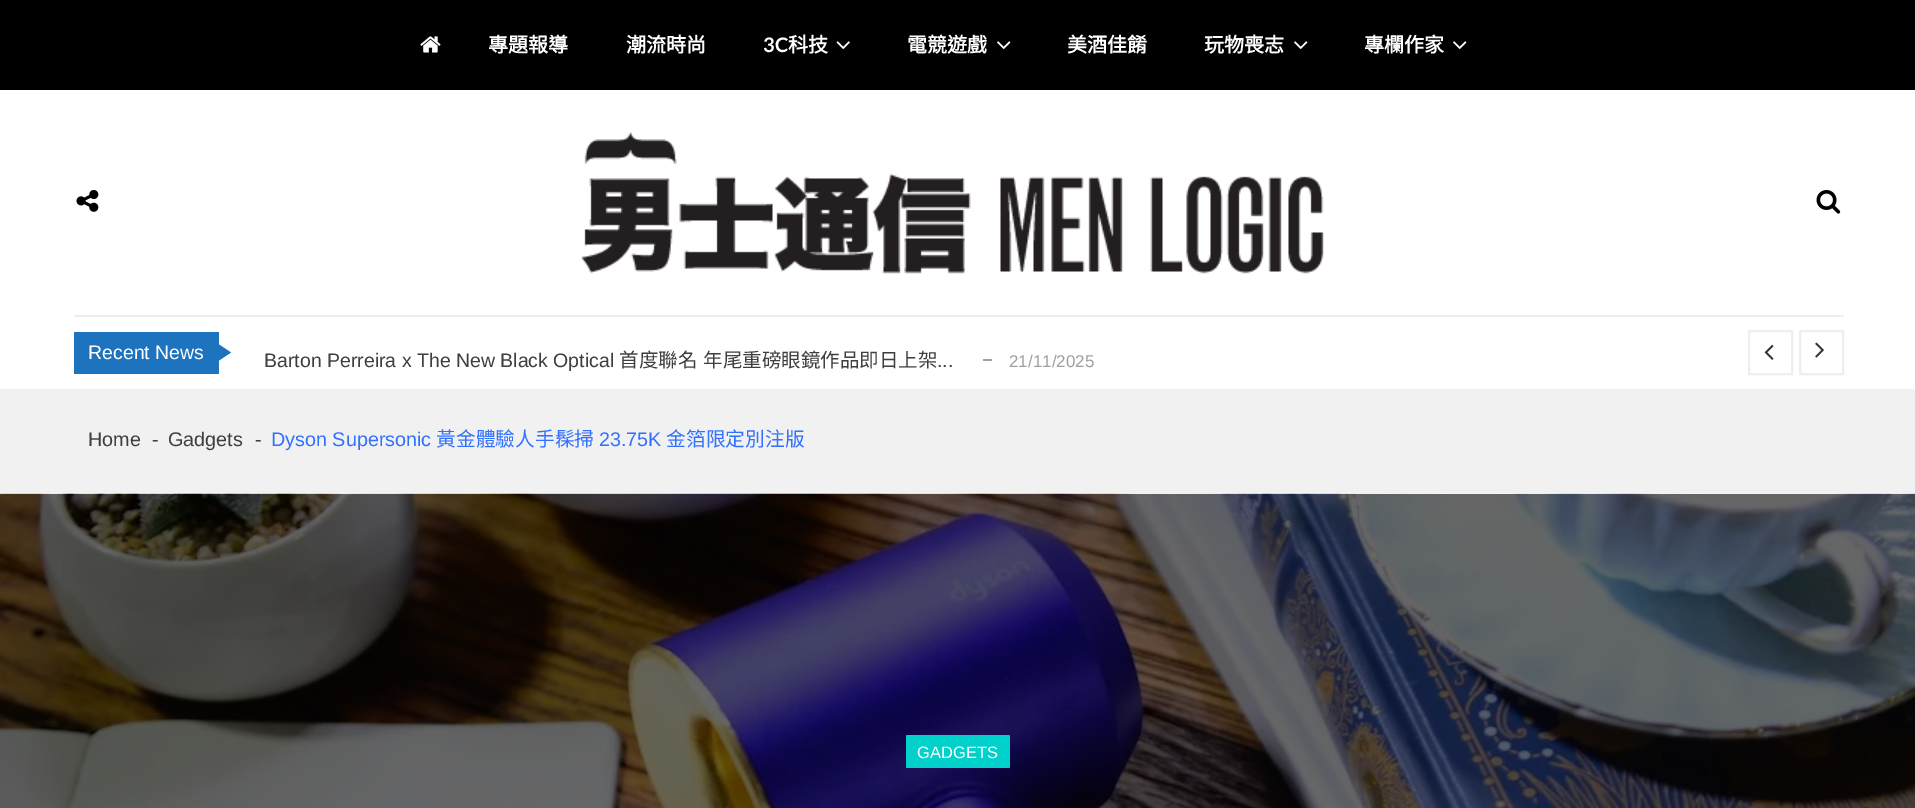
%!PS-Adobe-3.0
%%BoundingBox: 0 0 1915 808
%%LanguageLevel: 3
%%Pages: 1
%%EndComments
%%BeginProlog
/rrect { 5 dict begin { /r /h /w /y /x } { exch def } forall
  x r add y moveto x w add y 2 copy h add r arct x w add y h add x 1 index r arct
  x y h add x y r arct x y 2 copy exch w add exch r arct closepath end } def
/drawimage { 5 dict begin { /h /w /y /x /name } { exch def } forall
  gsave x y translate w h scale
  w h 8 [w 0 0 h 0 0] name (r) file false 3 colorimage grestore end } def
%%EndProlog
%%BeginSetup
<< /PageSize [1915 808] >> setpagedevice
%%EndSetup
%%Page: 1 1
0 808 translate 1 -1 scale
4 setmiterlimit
0.945 setgray
0 0 1915 808 rectfill
1 setgray
0 90 1915 299 rectfill
0 setgray
0 0 1915 90 rectfill
(images/1.raw) 420 36 21 17 drawimage
(images/2.raw) 836 41 14 8 drawimage
(images/3.raw) 997 41 14 8 drawimage
(images/3.raw) 1294 41 14 8 drawimage
(images/3.raw) 1453 41 14 8 drawimage
0.933 setgray
74 315 1770 2 rectfill
(images/4.raw) 76 190 23 22 drawimage
(images/5.raw) 581 132 743 142 drawimage
(images/6.raw) 1816 190 25 24 drawimage
0.118 0.451 0.745 setrgbcolor
74 332 145 42 rectfill
newpath 217.5 361.5 moveto 217.5 343.5 lineto 231 352.5 lineto closepath fill
0.627 setgray
983 359 9 2 rectfill
0.933 setgray
2 setlinewidth
1749 331 43 43 rectstroke
(images/7.raw) 1764 344 10 16 drawimage
1800 331 43 43 rectstroke
(images/8.raw) 1815 342 9 16 drawimage
(images/9.raw) 0 493 1915 315 drawimage
0 0.82 0.792 setrgbcolor
906 735 104 33 1.5 rrect fill
/NotoSansCJKTC-Bold [20 0 0 -20 0 0] selectfont
1 setgray
488 52 moveto (專題報導) show
626 52 moveto (潮流時尚) show
/Lato-Bold [20 0 0 -20 0 0] selectfont
763 52 moveto (3C) show
/NotoSansCJKTC-Bold [20 0 0 -20 0 0] selectfont
788 52 moveto (科技) show
907 52 moveto (電競遊戲) show
1067 52 moveto (美酒佳餚) show
1204 52 moveto (玩物喪志) show
1364 52 moveto (專欄作家) show
/LiberationSans-Regular [19.5 0 0 -19.5 0 0] selectfont
88 359 moveto (Recent News) show
0.247 setgray
264 367 moveto (Barton Perreira x The New Black Optical) show
/NotoSansCJKTC-Regular [19.5 0 0 -19.5 0 0] selectfont
619 367 moveto (首度聯名) show
703 367 moveto (年尾重磅眼鏡作品即日上架) show
/LiberationSans-Regular [19.5 0 0 -19.5 0 0] selectfont
937 367 moveto (...) show
/LiberationSans-Regular [17 0 0 -17 0 0] selectfont
0.627 setgray
1009 367 moveto (21/11/2025) show
/LiberationSans-Regular [19.75 0 0 -19.75 0 0] selectfont
0.247 setgray
88 446 moveto (Home) show
152 446 moveto (-) show
168 446 moveto (Gadgets) show
255 446 moveto (-) show
0.196 0.439 1 setrgbcolor
271 446 moveto (Dyson Supersonic) show
/NotoSansCJKTC-Regular [19.75 0 0 -19.75 0 0] selectfont
436 446 moveto (黃金體驗人手髹掃) show
/LiberationSans-Regular [19.75 0 0 -19.75 0 0] selectfont
599 446 moveto (23.75K) show
/NotoSansCJKTC-Regular [19.75 0 0 -19.75 0 0] selectfont
666 446 moveto (金箔限定別注版) show
/LiberationSans-Regular [16.5 0 0 -16.5 0 0] selectfont
1 setgray
917 758 moveto (GADGETS) show
showpage
%%EOF
